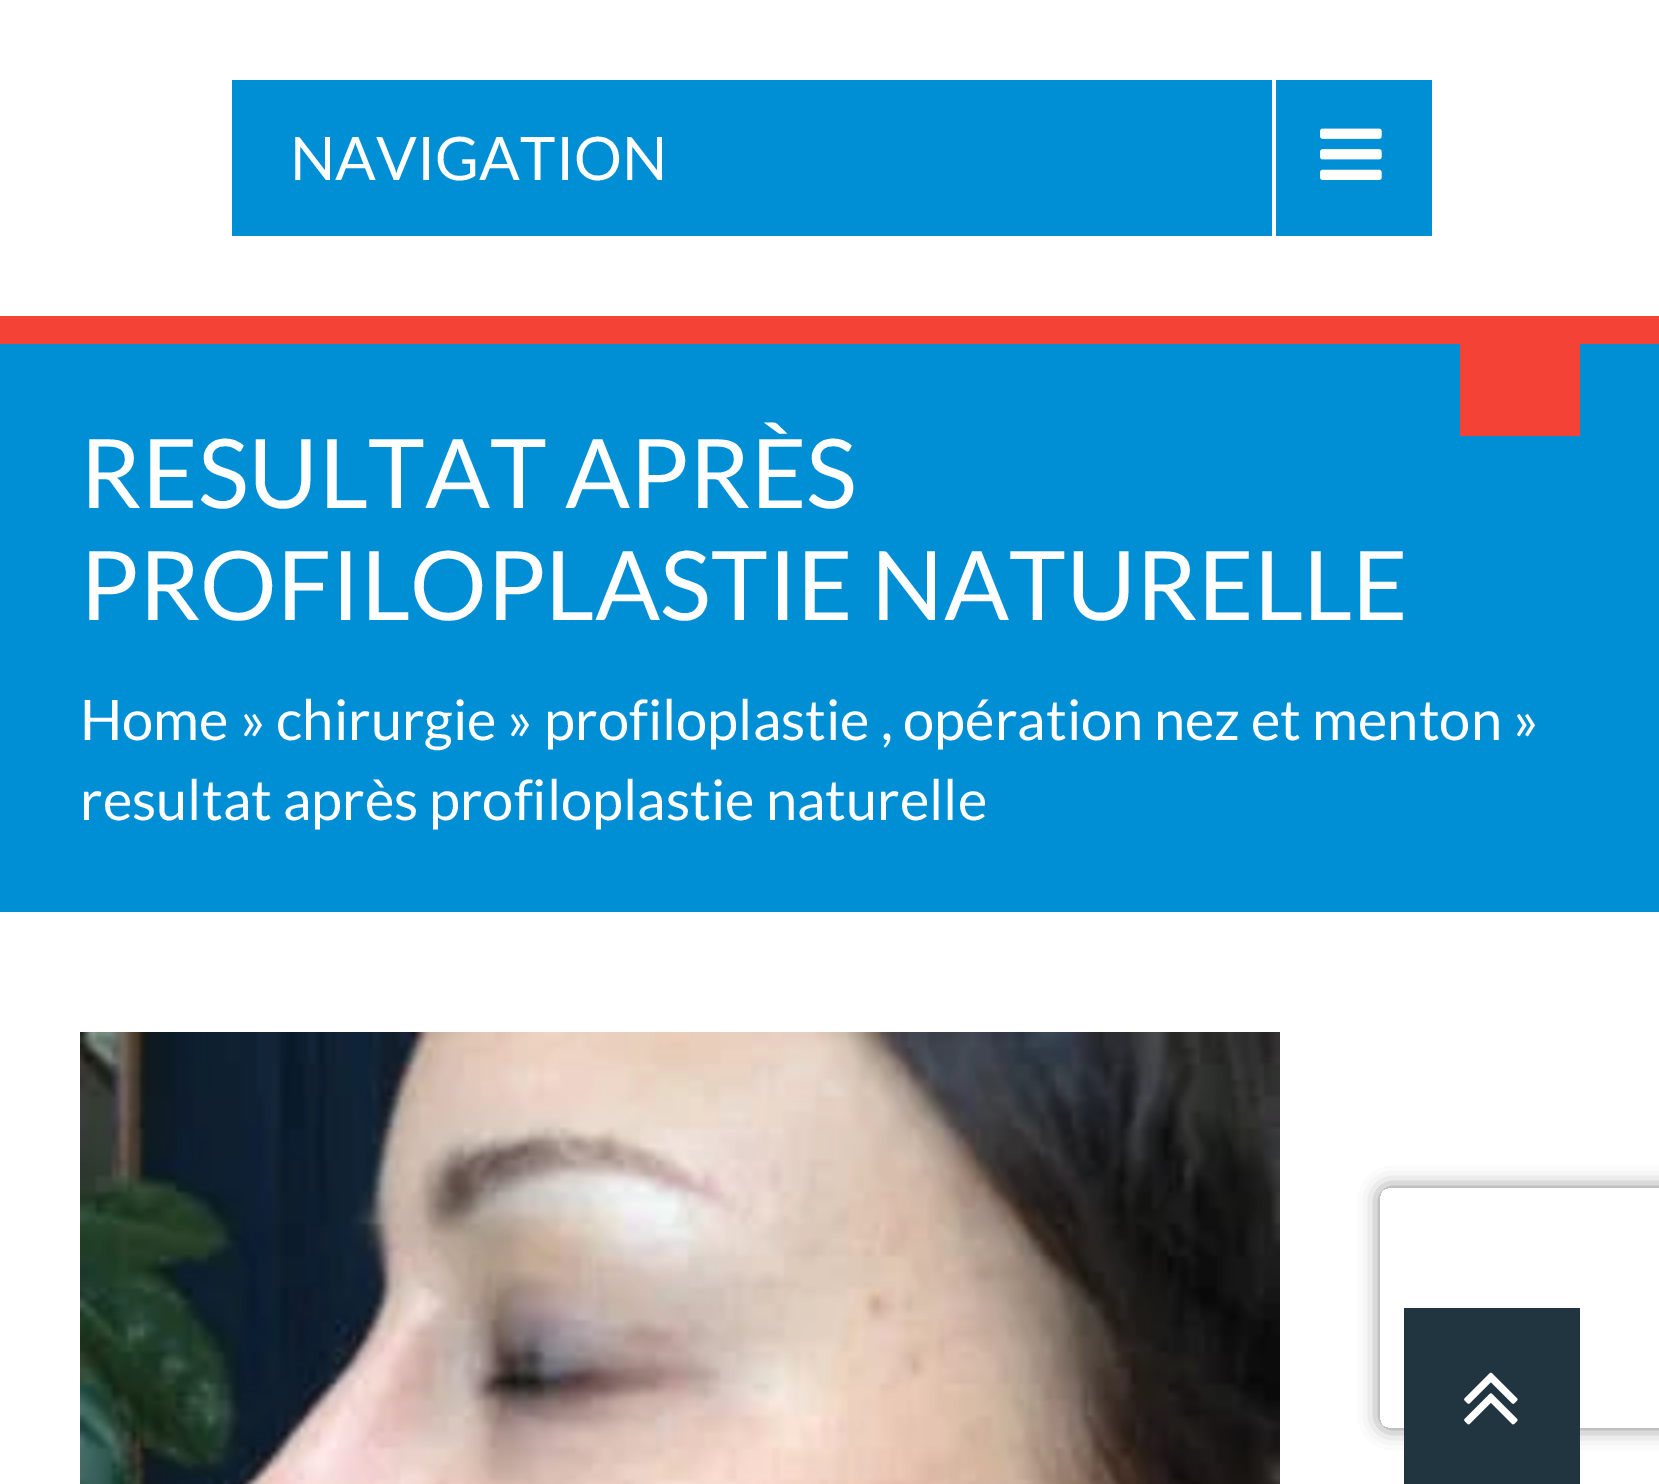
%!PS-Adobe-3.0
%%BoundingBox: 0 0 1659 1484
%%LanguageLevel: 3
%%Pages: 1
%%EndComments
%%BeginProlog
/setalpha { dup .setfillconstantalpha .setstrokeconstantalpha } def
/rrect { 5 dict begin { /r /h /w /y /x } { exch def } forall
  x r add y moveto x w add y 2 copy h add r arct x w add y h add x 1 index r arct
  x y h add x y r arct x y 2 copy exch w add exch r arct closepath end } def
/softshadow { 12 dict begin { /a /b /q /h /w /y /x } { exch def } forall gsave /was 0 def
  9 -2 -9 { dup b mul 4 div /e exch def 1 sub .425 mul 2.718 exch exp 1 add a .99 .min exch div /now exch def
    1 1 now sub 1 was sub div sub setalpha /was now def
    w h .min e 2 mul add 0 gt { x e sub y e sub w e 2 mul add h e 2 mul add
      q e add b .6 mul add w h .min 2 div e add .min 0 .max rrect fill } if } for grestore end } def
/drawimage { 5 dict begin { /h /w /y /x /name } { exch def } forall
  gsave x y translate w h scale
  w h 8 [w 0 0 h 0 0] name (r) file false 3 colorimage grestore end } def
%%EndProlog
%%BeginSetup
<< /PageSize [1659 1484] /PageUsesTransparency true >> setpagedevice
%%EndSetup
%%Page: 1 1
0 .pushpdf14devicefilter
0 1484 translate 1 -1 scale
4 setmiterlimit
1 setgray
0 0 1659 1484 rectfill
0 0.561 0.835 setrgbcolor
232 80 1200 156 rectfill
1 setgray
1272 80 4 156 rectfill
(images/1.raw) 1320 128 62 52 drawimage
0 0.561 0.835 setrgbcolor
0 344 1659 568 rectfill
0.957 0.263 0.212 setrgbcolor
1460 344 120 92 rectfill
0 316 1659 28 rectfill
(images/2.raw) 80 1032 1200 452 drawimage
gsave
newpath 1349 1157 moveto 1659 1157 lineto 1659 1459 lineto 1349 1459 lineto closepath 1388 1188 moveto 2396 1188 lineto 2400.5 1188 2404 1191.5 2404 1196 curveto 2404 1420 lineto 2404 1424.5 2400.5 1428 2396 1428 curveto 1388 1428 lineto 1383.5 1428 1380 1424.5 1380 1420 curveto 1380 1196 lineto 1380 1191.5 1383.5 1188 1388 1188 curveto closepath eoclip newpath
0.502 setgray
1380 1188 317 240 8 10 1 softshadow
grestore
0.129 0.208 0.251 setrgbcolor
1404 1308 176 176 rectfill
(images/3.raw) 1464 1372 54 53 drawimage
/Lato-Regular [60 0 0 -60 0 0] selectfont
1 setgray
290 180 moveto (NAVIGATION) show
/Lato-Regular [96 0 0 -96 0 0] selectfont
80 508 moveto (RESULTAT APRÈS) show
80 620 moveto (PROFILOPLASTIE NATURELLE) show
/Lato-Regular [56 0 0 -56 0 0] selectfont
80 740 moveto (Home » chirurgie » profiloplastie , opération nez et menton ») show
80 820 moveto (resultat après profiloplastie naturelle) show
.poppdf14devicefilter showpage
%%EOF
